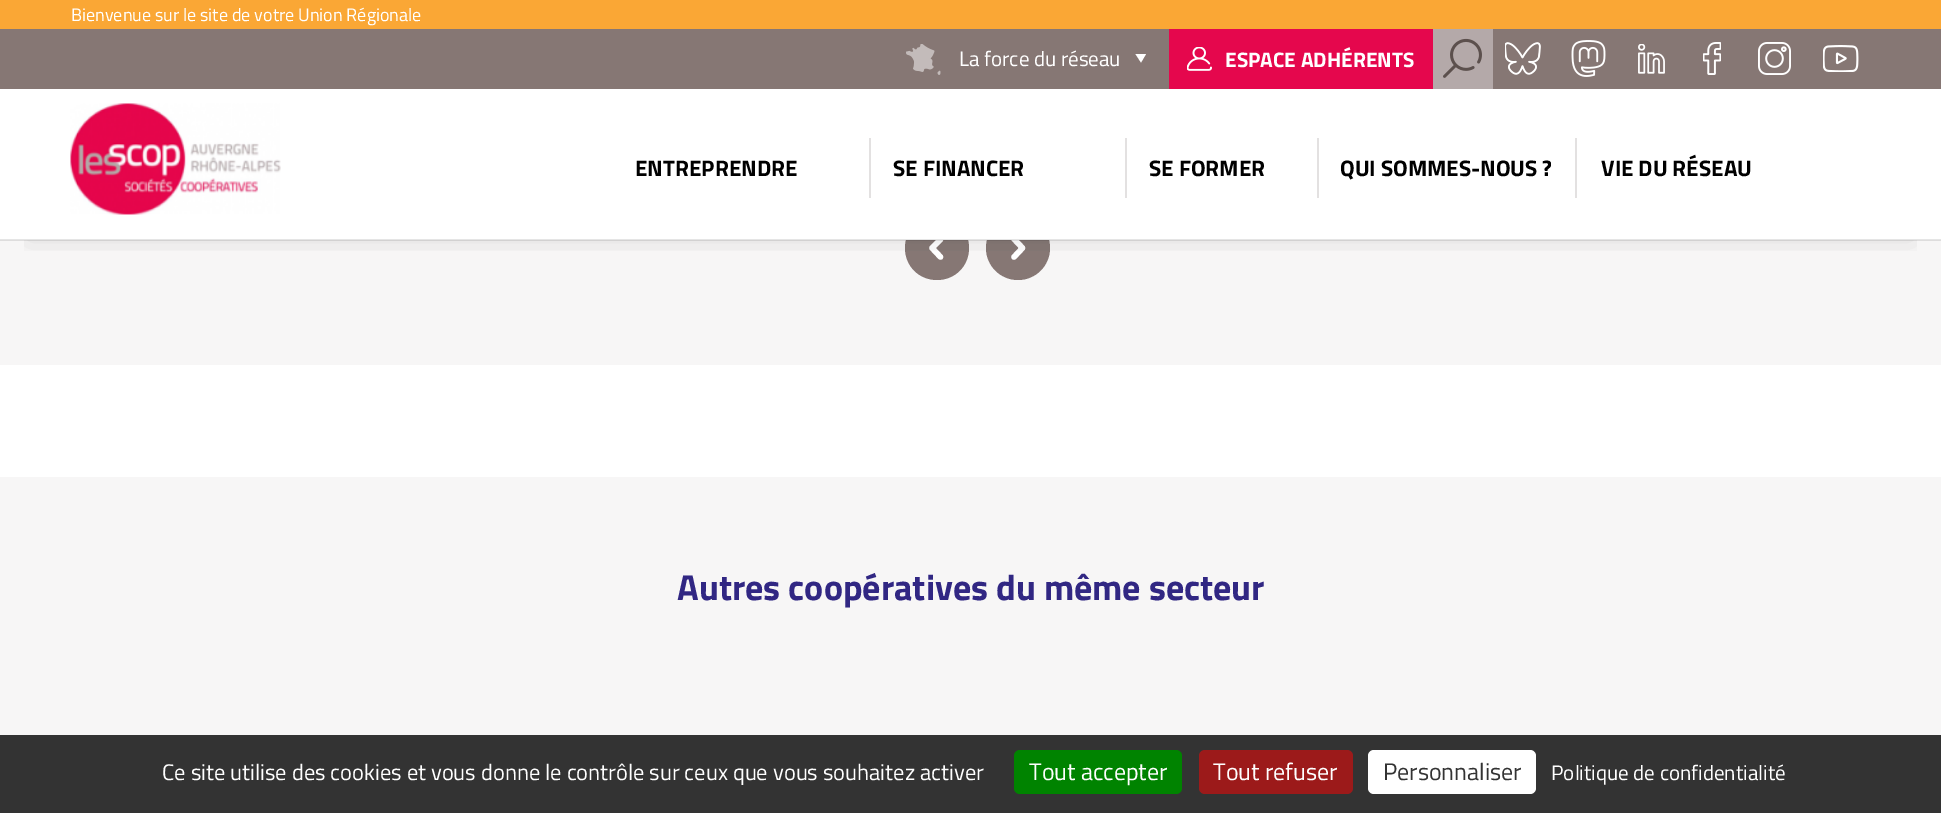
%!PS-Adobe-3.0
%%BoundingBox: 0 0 1941 813
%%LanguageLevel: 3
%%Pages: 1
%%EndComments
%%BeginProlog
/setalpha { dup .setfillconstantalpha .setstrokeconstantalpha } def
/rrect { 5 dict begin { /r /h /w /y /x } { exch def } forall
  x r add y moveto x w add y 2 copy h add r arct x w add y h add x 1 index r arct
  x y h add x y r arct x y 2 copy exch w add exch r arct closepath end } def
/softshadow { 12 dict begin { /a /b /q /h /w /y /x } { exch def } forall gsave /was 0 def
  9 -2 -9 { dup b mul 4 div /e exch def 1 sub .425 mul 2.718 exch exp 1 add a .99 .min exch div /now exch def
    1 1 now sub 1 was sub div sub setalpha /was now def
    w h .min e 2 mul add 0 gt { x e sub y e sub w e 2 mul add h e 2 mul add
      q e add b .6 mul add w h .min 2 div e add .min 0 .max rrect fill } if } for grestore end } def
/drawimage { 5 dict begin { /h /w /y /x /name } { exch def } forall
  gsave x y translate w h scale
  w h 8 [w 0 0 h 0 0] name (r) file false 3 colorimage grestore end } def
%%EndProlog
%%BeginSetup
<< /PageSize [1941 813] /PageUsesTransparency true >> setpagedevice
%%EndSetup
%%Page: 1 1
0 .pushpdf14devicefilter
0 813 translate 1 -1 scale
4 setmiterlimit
1 setgray
0 0 1941 813 rectfill
0.525 0.467 0.455 setrgbcolor
0 29 1941 60 rectfill
0.98 0.655 0.208 setrgbcolor
0 0 1941 29 rectfill
(images/1.raw) 906 44 35 31 drawimage
1 setgray
newpath 1146 54 moveto 1135.5 54 lineto 1141 62.5 lineto closepath eofill
0.898 0.027 0.302 setrgbcolor
1169 29 264 60 rectfill
(images/2.raw) 1187 47 25 24 drawimage
0.706 0.663 0.663 setrgbcolor
1433 29 60 60 rectfill
(images/3.raw) 1443 38 39 40 drawimage
(images/4.raw) 1505 42 36 33 drawimage
(images/5.raw) 1571 40 35 37 drawimage
(images/6.raw) 1638 44 27 30 drawimage
(images/7.raw) 1703 42 18 33 drawimage
(images/8.raw) 1758 42 33 33 drawimage
(images/9.raw) 1823 45 36 27 drawimage
0.969 0.965 0.965 setrgbcolor
0 240 1941 125 rectfill
0.525 0.467 0.455 setrgbcolor
newpath 937 280 moveto 919 280 905 266 905 248 curveto 905 230 919 216 937 216 curveto 955 216 969 230 969 248 curveto 969 266 955 280 937 280 curveto closepath eofill
1 setgray
5.5 setlinewidth
1 setlinecap
1 setlinejoin
newpath 940.5 257 moveto 932 248 lineto 940.5 239.5 lineto stroke
0.525 0.467 0.455 setrgbcolor
newpath 1018 248 32 0 360 arc closepath fill
1 setgray
newpath 1014 239 moveto 1022.5 248 lineto 1014 257 lineto stroke
906 216 143 24 rectfill
gsave
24 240 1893 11 rectclip
0 setgray
27 143 1887 97 0 13.5 0.1 softshadow
grestore
0.1 setalpha
0 setgray
0 239 1941 2 rectfill
1 setalpha
(images/10.raw) 70 103 211 112 drawimage
0.89 0.882 0.882 setrgbcolor
869 138 2 60 rectfill
1125 138 2 60 rectfill
1317 138 2 60 rectfill
1575 138 2 60 rectfill
0.969 0.965 0.965 setrgbcolor
0 477 1941 258 rectfill
0.2 setgray
0 735 1941 78 rectfill
0 0.514 0 setrgbcolor
1014 750 168 44 6 rrect fill
0.612 0.102 0.102 setrgbcolor
1199 750 154 44 6 rrect fill
1 setgray
1368 750 168 44 6 rrect fill
/TitilliumWeb-Regular [18 0 0 -18 0 0] selectfont
71 21 moveto (Bienvenue sur le site de votre Union Régionale) show
/TitilliumWeb-Regular [21 0 0 -21 0 0] selectfont
959 66 moveto (La force du réseau) show
/TitilliumWeb-Bold [21 0 0 -21 0 0] selectfont
1225 67 moveto (ESPACE ADHÉRENTS) show
/TitilliumWeb-Bold [22.5 0 0 -22.5 0 0] selectfont
0 setgray
635 176 moveto (ENTREPRENDRE) show
893 176 moveto (SE FINANCER) show
1149 176 moveto (SE FORMER) show
1340 176 moveto (QUI SOMMES-NOUS ?) show
1601 176 moveto (VIE DU RÉSEAU) show
/TitilliumWeb-Bold [36 0 0 -36 0 0] selectfont
0.192 0.153 0.514 setrgbcolor
677 600 moveto (Autres coopératives du même secteur) show
/TitilliumWeb-Regular [22.5 0 0 -22.5 0 0] selectfont
1 setgray
162 780 moveto (Ce site utilise des cookies et vous donne le contrôle sur ceux que vous souhaitez activer) show
/TitilliumWeb-Regular [24 0 0 -24 0 0] selectfont
1029 780 moveto (Tout accepter) show
1213 780 moveto (Tout refuser) show
0.2 setgray
1383 780 moveto (Personnaliser) show
/TitilliumWeb-Regular [21 0 0 -21 0 0] selectfont
1 setgray
1551 780 moveto (Politique de confidentialité) show
.poppdf14devicefilter showpage
%%EOF
